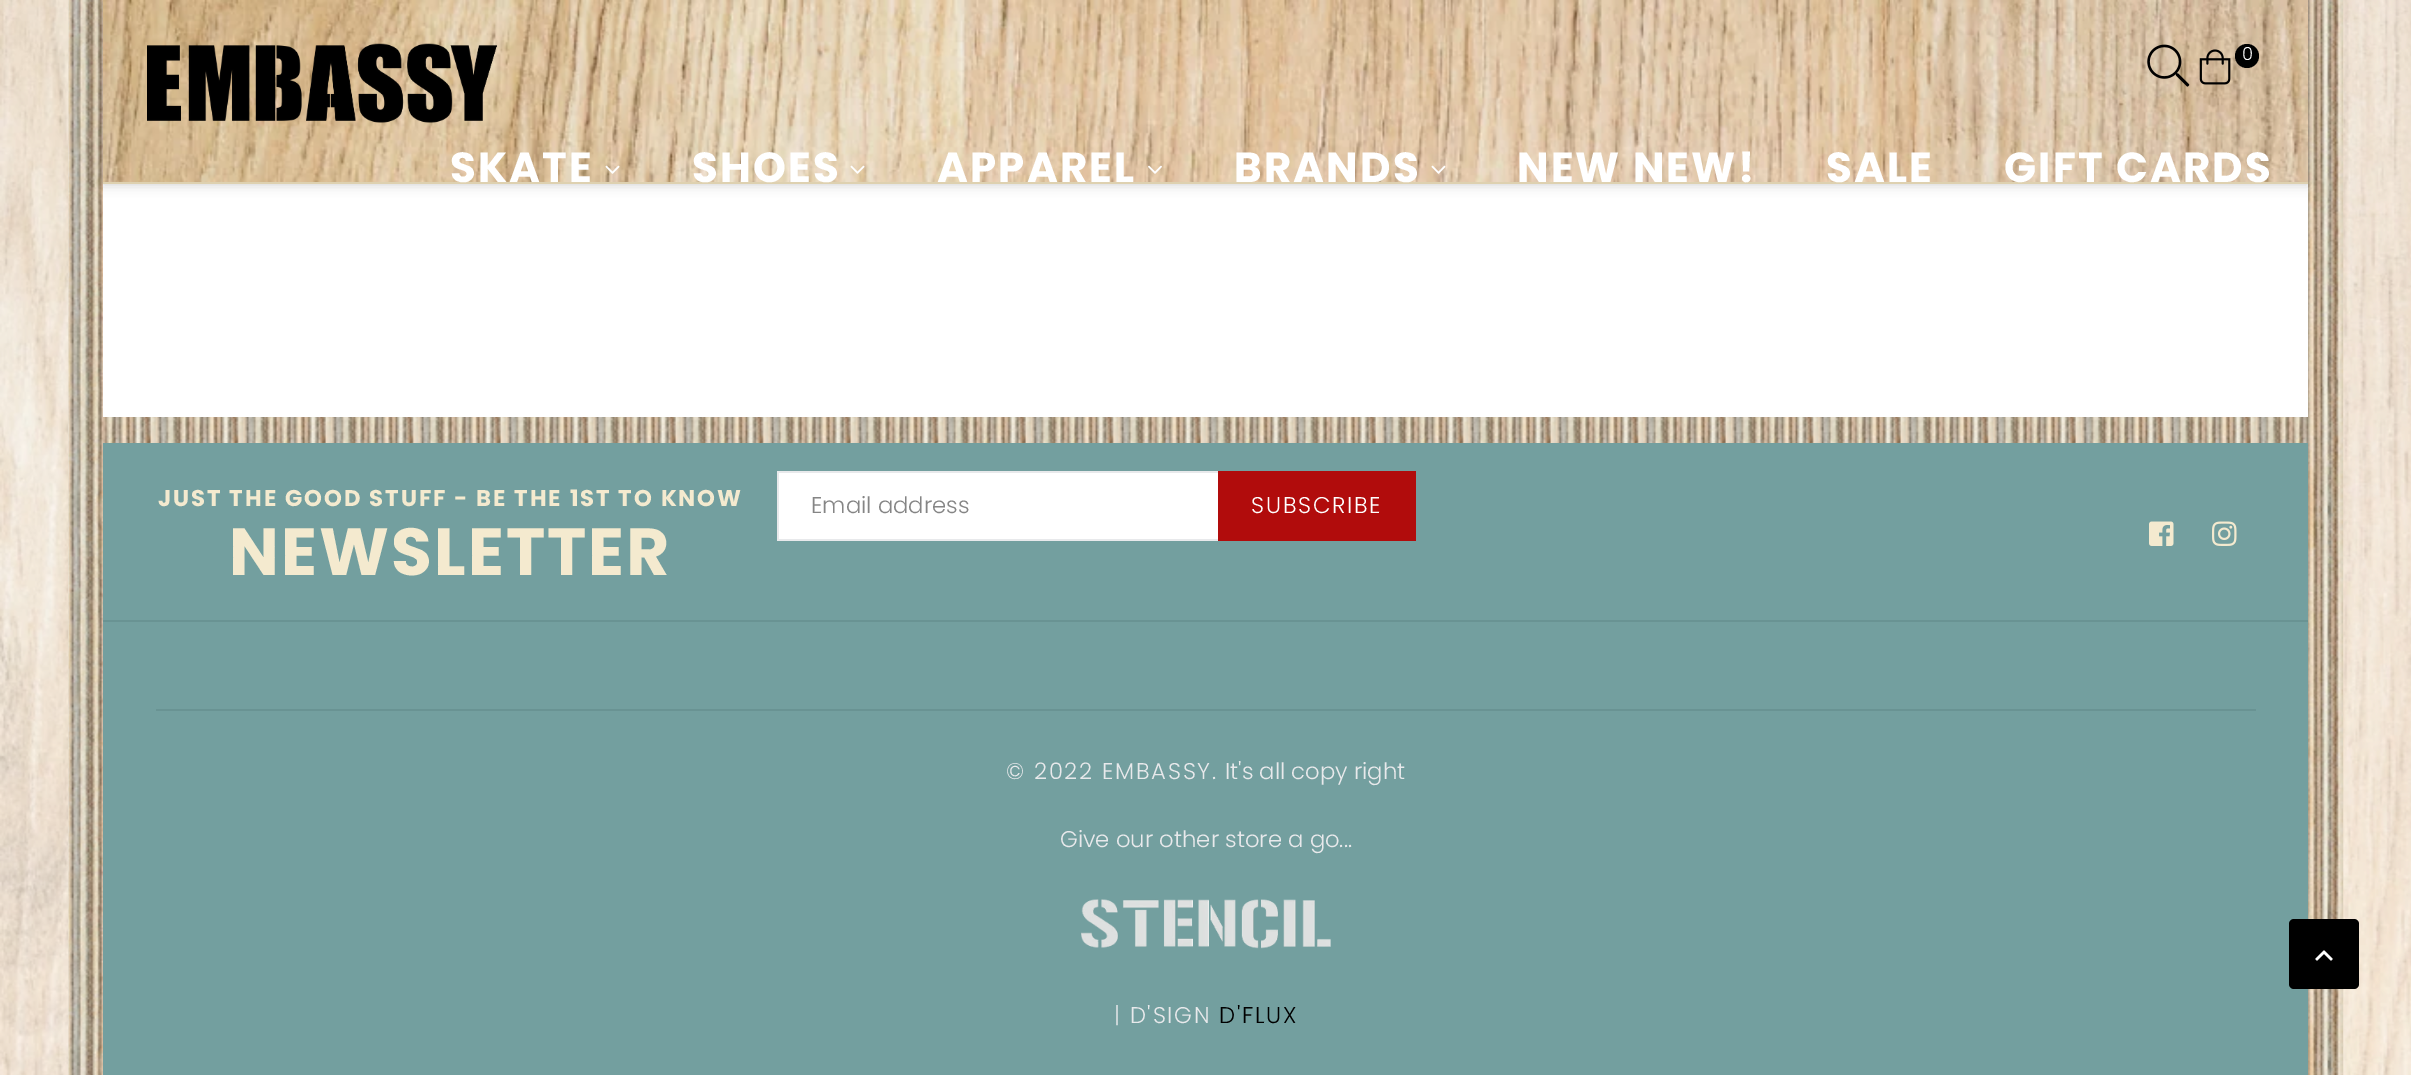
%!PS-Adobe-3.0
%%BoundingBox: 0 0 2411 1075
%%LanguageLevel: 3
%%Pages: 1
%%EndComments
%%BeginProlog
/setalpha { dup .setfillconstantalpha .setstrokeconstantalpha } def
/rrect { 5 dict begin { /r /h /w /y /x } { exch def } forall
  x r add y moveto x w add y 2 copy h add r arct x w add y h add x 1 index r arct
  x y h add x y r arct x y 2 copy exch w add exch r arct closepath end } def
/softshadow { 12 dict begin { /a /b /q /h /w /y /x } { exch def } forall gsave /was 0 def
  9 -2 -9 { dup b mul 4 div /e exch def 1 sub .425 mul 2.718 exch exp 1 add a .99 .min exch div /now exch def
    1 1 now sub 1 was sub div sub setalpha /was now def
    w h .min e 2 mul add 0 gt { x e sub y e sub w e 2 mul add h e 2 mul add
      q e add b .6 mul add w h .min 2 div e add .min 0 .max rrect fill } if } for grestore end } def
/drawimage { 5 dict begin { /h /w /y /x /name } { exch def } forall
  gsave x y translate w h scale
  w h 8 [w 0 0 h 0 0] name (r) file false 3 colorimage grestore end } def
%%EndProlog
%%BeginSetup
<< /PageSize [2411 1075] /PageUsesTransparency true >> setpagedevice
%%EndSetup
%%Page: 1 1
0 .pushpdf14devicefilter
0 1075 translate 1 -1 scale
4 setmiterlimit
1 setgray
0 0 2411 1075 rectfill
(images/1.raw) 0 0 2411 1075 drawimage
(images/2.raw) 68 0 2276 1075 drawimage
103 184 2205 233 rectfill
0 setgray
103 0 2205 184 0 6 0.2 softshadow
(images/3.raw) 103 0 2205 182 drawimage
0.871 0.82 0.69 setrgbcolor
103 182 2205 2 rectfill
(images/4.raw) 147 43 350 80 drawimage
(images/5.raw) 2147 44 43 43 drawimage
(images/6.raw) 2199 49 32 36 drawimage
0 setgray
newpath 2247 56 12 0 360 arc closepath fill
(images/7.raw) 605 165 15 9 drawimage
(images/8.raw) 850 165 15 9 drawimage
(images/9.raw) 1148 165 14 9 drawimage
(images/10.raw) 1431 165 15 9 drawimage
0.451 0.624 0.624 setrgbcolor
103 443 2205 177 rectfill
1 setgray
779 473 439 66 rectfill
0.91 0.914 0.922 setrgbcolor
777 471 441 2 rectfill
777 539 441 2 rectfill
777 471 2 70 rectfill
0.694 0.047 0.047 setrgbcolor
1218 471 198 70 rectfill
(images/11.raw) 2149 521 25 25 drawimage
(images/12.raw) 2212 521 25 25 drawimage
0.451 0.624 0.624 setrgbcolor
103 622 2205 453 rectfill
0.412 0.576 0.576 setrgbcolor
103 620 2205 2 rectfill
156 709 2100 2 rectfill
(images/13.raw) 1081 899 250 50 drawimage
0 setgray
2289 919 70 70 5 rrect fill
(images/14.raw) 2315 950 18 11 drawimage
/Poppins-Light [18 0 0 -18 0 0] selectfont
1 setgray
2242 60 moveto (0) show
/Poppins-Bold [42 0 0 -42 0 0] selectfont
450 182 moveto 2.1 0 (SKATE) ashow
692 182 moveto 2.1 0 (SHOES) ashow
937 182 moveto 2.1 0 (APPAREL) ashow
1234 182 moveto 2.1 0 (BRANDS) ashow
1517 182 moveto 2.1 0 (NEW NEW!) ashow
1826 182 moveto 2.1 0 (SALE) ashow
2004 182 moveto 2.1 0 (GIFT CARDS) ashow
/Poppins-Bold [22.75 0 0 -22.75 0 0] selectfont
0.957 0.918 0.812 setrgbcolor
158 506 moveto 2 0 (JUST THE GOOD STUFF - BE THE 1ST TO KNOW) ashow
/Poppins-Bold [66.5 0 0 -66.5 0 0] selectfont
229 575 moveto 2 0 (NEWSLETTER) ashow
/Poppins-Light [22.75 0 0 -22.75 0 0] selectfont
0.522 setgray
811 513 moveto (Email address) show
1 setgray
1251 513 moveto 1.75 0 (SUBSCRIBE) ashow
0.91 0.914 0.922 setrgbcolor
1006 779 moveto 1.75 0 (© 2022 EMBASSY.) ashow
1225 779 moveto (It's all copy right) show
1060 847 moveto (Give our other store a go...) show
1114 1023 moveto 1.75 0 (| D'SIGN) ashow
0 setgray
1219 1023 moveto 1.75 0 (D'FLUX) ashow
.poppdf14devicefilter showpage
%%EOF
